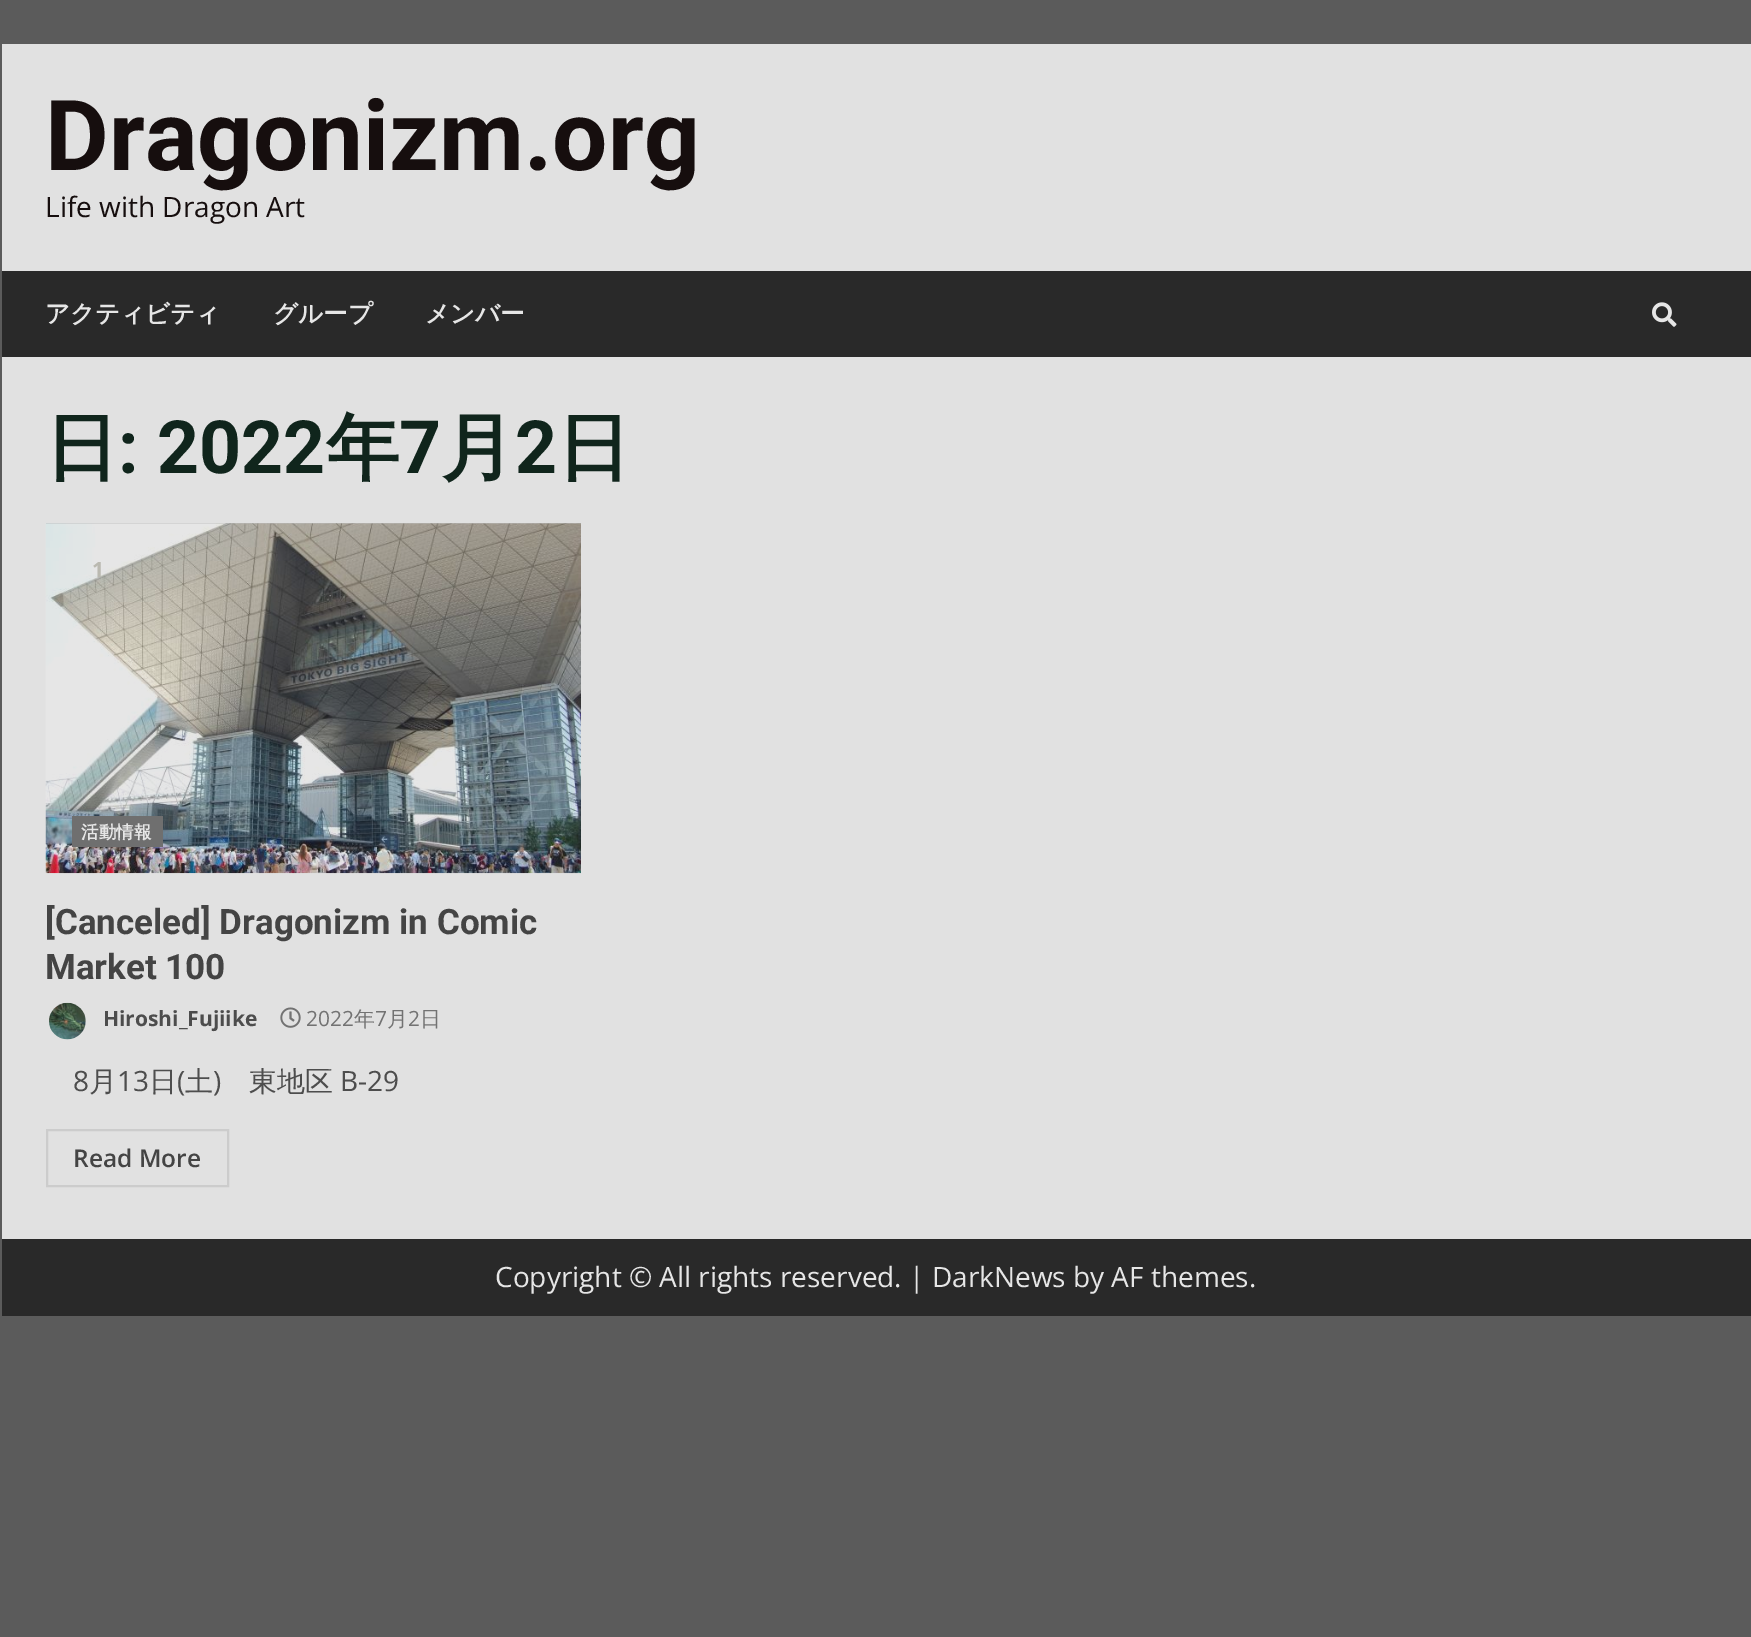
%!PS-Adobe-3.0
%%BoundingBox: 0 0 1751 1637
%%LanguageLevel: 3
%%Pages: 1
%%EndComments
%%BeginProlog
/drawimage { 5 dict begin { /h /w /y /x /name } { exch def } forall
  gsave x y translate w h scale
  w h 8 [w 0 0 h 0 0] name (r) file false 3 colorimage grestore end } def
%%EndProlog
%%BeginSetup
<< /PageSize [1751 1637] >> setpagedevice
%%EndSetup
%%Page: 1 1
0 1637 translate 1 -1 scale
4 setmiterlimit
0.357 setgray
0 0 1751 1637 rectfill
0.882 setgray
2 44 1749 1195 rectfill
0.161 setgray
2 271 1749 86 rectfill
(images/1.raw) 1652 302 25 25 drawimage
0.733 setgray
46 523 535 1 rectfill
(images/2.raw) 45 523 536 351 drawimage
0.435 setgray
72 816 91 31 rectfill
(images/3.raw) 49 1002 37 38 drawimage
(images/4.raw) 280 1007 21 21 drawimage
0.8 setgray
2 setlinewidth
47 1130 181 56 rectstroke
0.161 setgray
2 1239 1749 77 rectfill
/Roboto-Bold [98 0 0 -98 0 0] selectfont
0.086 0.055 0.055 setrgbcolor
45 170 moveto (Dragonizm.org) show
/OpenSans-Regular [28 0 0 -28 0 0] selectfont
45 217 moveto (Life with Dragon Art) show
/WenQuanYiZenHei-Bold [24.5 0 0 -24.5 0 0] selectfont
0.902 setgray
45 322 moveto (アクティビティ) show
273 322 moveto (グループ) show
425 322 moveto (メンバー) show
/WenQuanYiZenHei-Bold [73.5 0 0 -73.5 0 0] selectfont
0.063 0.145 0.11 setrgbcolor
45 473 moveto (日) show
/Roboto-Bold [73.5 0 0 -73.5 0 0] selectfont
118 473 moveto (: 2022) show
/WenQuanYiZenHei-Bold [73.5 0 0 -73.5 0 0] selectfont
326 473 moveto (年) show
/Roboto-Bold [73.5 0 0 -73.5 0 0] selectfont
399 473 moveto (7) show
/WenQuanYiZenHei-Bold [73.5 0 0 -73.5 0 0] selectfont
441 473 moveto (月) show
/Roboto-Bold [73.5 0 0 -73.5 0 0] selectfont
515 473 moveto (2) show
/WenQuanYiZenHei-Bold [73.5 0 0 -73.5 0 0] selectfont
557 473 moveto (日) show
/OpenSans-Bold [21 0 0 -21 0 0] selectfont
0.729 0.725 0.69 setrgbcolor
92 577 moveto 1 0 (1) ashow
/WenQuanYiZenHei-Bold [17.5 0 0 -17.5 0 0] selectfont
0.902 setgray
81 838 moveto (活動情報) show
/Roboto-Bold [35 0 0 -35 0 0] selectfont
0.267 setgray
45 934 moveto ([Canceled] Dragonizm in Comic) show
45 979 moveto (Market 100) show
/OpenSans-Bold [21 0 0 -21 0 0] selectfont
0.302 setgray
103 1026 moveto (Hiroshi_Fujiike) show
/OpenSans-Regular [21 0 0 -21 0 0] selectfont
0.447 setgray
306 1026 moveto (2022) show
/WenQuanYiZenHei-Medium [21 0 0 -21 0 0] selectfont
354 1026 moveto (年) show
/OpenSans-Regular [21 0 0 -21 0 0] selectfont
375 1026 moveto (7) show
/WenQuanYiZenHei-Medium [21 0 0 -21 0 0] selectfont
387 1026 moveto (月) show
/OpenSans-Regular [21 0 0 -21 0 0] selectfont
408 1026 moveto (2) show
/WenQuanYiZenHei-Medium [21 0 0 -21 0 0] selectfont
420 1026 moveto (日) show
/OpenSans-Regular [28 0 0 -28 0 0] selectfont
0.302 setgray
73 1091 moveto (8) show
/WenQuanYiZenHei-Medium [28 0 0 -28 0 0] selectfont
89 1091 moveto (月) show
/OpenSans-Regular [28 0 0 -28 0 0] selectfont
117 1091 moveto (13) show
/WenQuanYiZenHei-Medium [28 0 0 -28 0 0] selectfont
149 1091 moveto (日 土) show
249 1091 moveto (東地区) show
/OpenSans-Regular [28 0 0 -28 0 0] selectfont
340 1091 moveto (B-29) show
177 1091 moveto (\() show
213 1091 moveto (\)) show
/OpenSans-SemiBold [24.5 0 0 -24.5 0 0] selectfont
0.267 setgray
73 1167 moveto (Read More) show
/OpenSans-Regular [28 0 0 -28 0 0] selectfont
0.902 setgray
495 1287 moveto (Copyright © All rights reserved. | DarkNews by AF themes.) show
showpage
%%EOF
